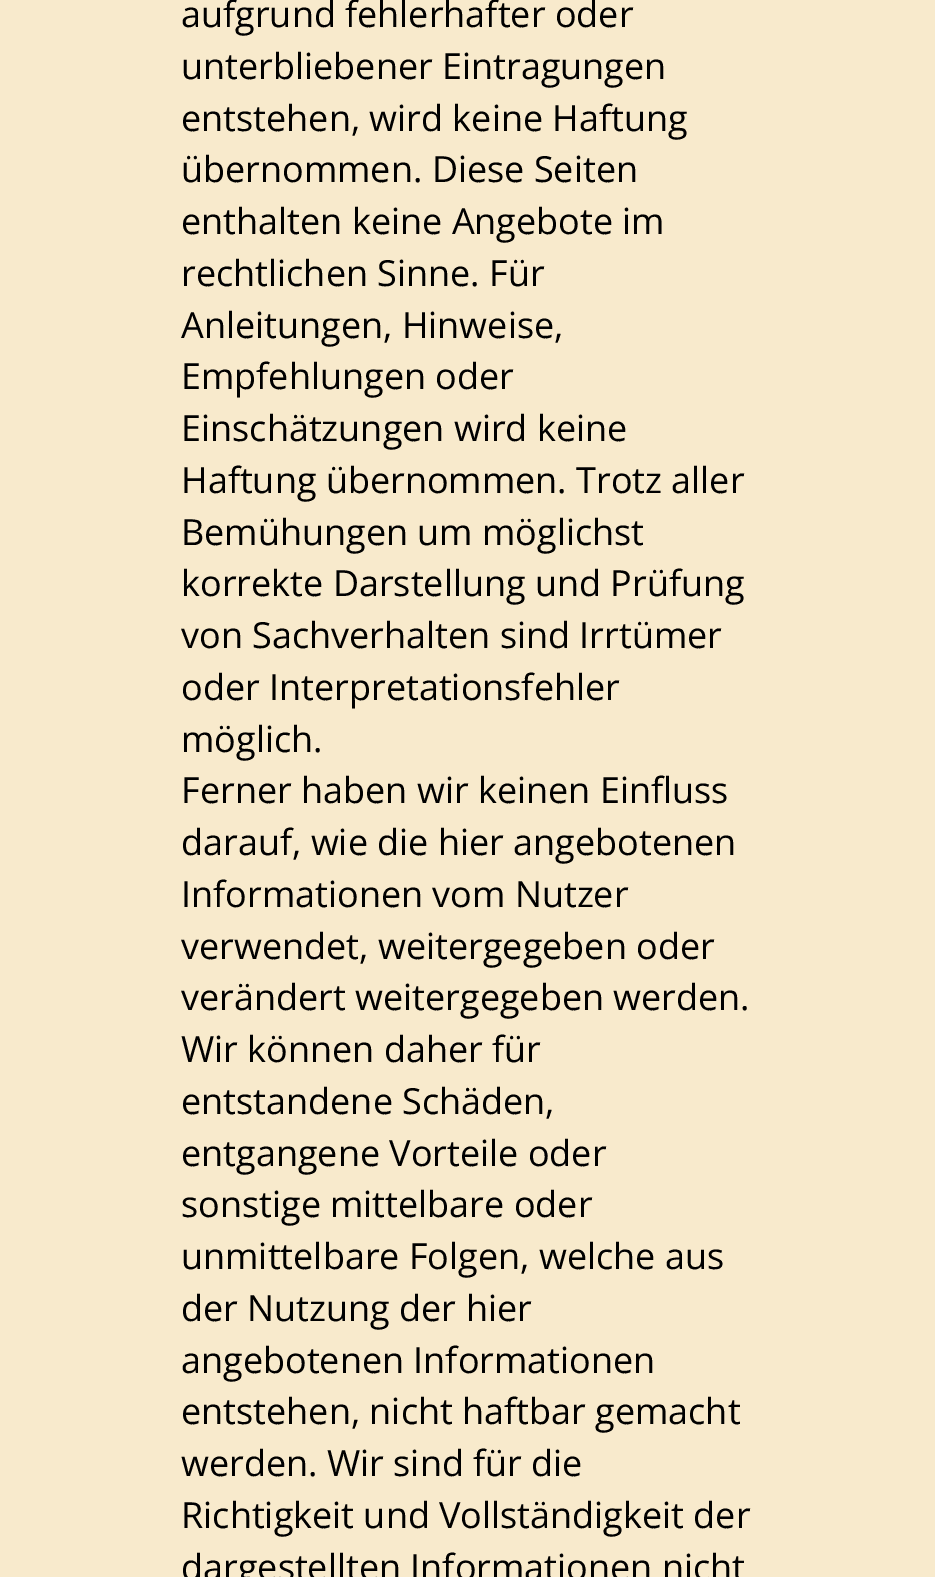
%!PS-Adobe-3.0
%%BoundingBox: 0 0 935 1577
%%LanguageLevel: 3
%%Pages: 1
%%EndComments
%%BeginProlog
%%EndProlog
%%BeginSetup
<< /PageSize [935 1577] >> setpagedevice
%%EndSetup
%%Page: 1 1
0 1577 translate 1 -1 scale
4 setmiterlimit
0.973 0.918 0.8 setrgbcolor
0 0 935 1577 rectfill
/OpenSans-Regular [36 0 0 -36 0 0] selectfont
0 setgray
181 27 moveto (aufgrund fehlerhafter oder) show
181 79 moveto (unterbliebener Eintragungen) show
181 131 moveto (entstehen, wird keine Haftung) show
181 182 moveto (übernommen. Diese Seiten) show
181 234 moveto (enthalten keine Angebote im) show
181 286 moveto (rechtlichen Sinne. Für) show
181 338 moveto (Anleitungen, Hinweise,) show
181 389 moveto (Empfehlungen oder) show
181 441 moveto (Einschätzungen wird keine) show
181 493 moveto (Haftung übernommen. Trotz aller) show
181 545 moveto (Bemühungen um möglichst) show
181 596 moveto (korrekte Darstellung und Prüfung) show
181 648 moveto (von Sachverhalten sind Irrtümer) show
181 700 moveto (oder Interpretationsfehler) show
181 752 moveto (möglich.) show
181 803 moveto (Ferner haben wir keinen Einfluss) show
181 855 moveto (darauf, wie die hier angebotenen) show
181 907 moveto (Informationen vom Nutzer) show
181 959 moveto (verwendet, weitergegeben oder) show
181 1010 moveto (verändert weitergegeben werden.) show
181 1062 moveto (Wir können daher für) show
181 1114 moveto (entstandene Schäden,) show
181 1166 moveto (entgangene Vorteile oder) show
181 1217 moveto (sonstige mittelbare oder) show
181 1269 moveto (unmittelbare Folgen, welche aus) show
181 1321 moveto (der Nutzung der hier) show
181 1373 moveto (angebotenen Informationen) show
181 1424 moveto (entstehen, nicht haftbar gemacht) show
181 1476 moveto (werden. Wir sind für die) show
181 1528 moveto (Richtigkeit und Vollständigkeit der) show
181 1580 moveto (dargestellten Informationen nicht) show
showpage
%%EOF
